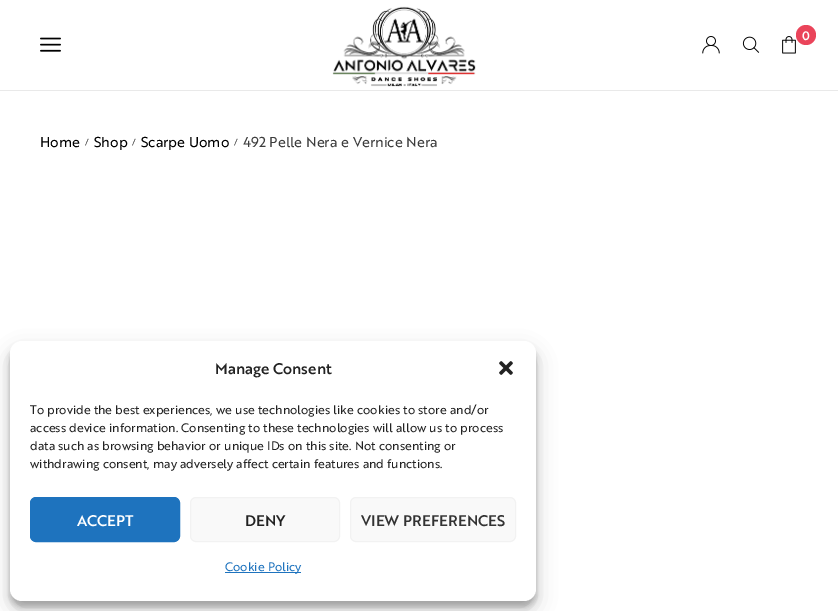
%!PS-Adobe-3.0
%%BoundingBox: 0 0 838 611
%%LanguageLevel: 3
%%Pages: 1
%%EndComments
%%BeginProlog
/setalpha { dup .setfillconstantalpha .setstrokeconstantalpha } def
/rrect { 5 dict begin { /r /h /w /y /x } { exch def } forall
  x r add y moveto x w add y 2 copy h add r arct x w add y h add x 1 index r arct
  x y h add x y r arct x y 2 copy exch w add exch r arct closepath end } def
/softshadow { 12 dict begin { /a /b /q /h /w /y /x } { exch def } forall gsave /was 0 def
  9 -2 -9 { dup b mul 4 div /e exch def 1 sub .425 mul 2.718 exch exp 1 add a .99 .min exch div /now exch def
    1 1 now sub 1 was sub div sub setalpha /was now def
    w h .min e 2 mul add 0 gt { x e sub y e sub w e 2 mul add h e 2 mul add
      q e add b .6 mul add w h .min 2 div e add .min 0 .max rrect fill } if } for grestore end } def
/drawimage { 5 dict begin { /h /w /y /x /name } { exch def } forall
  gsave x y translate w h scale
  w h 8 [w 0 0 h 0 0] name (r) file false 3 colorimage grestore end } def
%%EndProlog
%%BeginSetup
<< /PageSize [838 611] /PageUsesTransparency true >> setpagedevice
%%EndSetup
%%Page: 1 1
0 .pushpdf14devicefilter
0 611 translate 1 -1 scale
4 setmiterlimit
1 setgray
0 0 838 611 rectfill
0.914 setgray
0 90 838 1 rectfill
(images/1.raw) 332 6 144 81 drawimage
(images/2.raw) 702 36 18 18 drawimage
(images/3.raw) 742 36 18 17 drawimage
(images/4.raw) 782 36 14 18 drawimage
0.918 0.267 0.353 setrgbcolor
newpath 806 35 10 0 360 arc closepath fill
(images/5.raw) 40 37 21 15 drawimage
0 setgray
10 347 526 260 12 3 0.23 softshadow
10 351 526 260 12 10 0.19 softshadow
1 setgray
10 341 526 260 12 rrect fill
(images/6.raw) 499 361 14 14 drawimage
0.118 0.451 0.745 setrgbcolor
30.5 497.5 149 44 5.5 rrect gsave fill grestore
stroke
0.976 setgray
190.5 497.5 149 44 5.5 rrect gsave fill grestore
0.949 setgray
stroke
0.976 setgray
350.5 497.5 165 44 5.5 rrect gsave fill grestore
0.949 setgray
stroke
0.118 0.451 0.745 setrgbcolor
225 572 76 1 rectfill
/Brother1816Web-Medium [12 0 0 -12 0 0] selectfont
1 setgray
802 40 moveto (0) show
/Brother1816Web-Regular [14 0 0 -14 0 0] selectfont
0 setgray
40 147 moveto (Home) show
/Brother1816Web-Regular [8 0 0 -8 0 0] selectfont
0.239 setgray
85 145 moveto (/) show
/Brother1816Web-Regular [14 0 0 -14 0 0] selectfont
0 setgray
94 147 moveto (Shop) show
/Brother1816Web-Regular [8 0 0 -8 0 0] selectfont
0.239 setgray
132 145 moveto (/) show
/Brother1816Web-Regular [14 0 0 -14 0 0] selectfont
0 setgray
141 147 moveto (Scarpe Uomo) show
/Brother1816Web-Regular [8 0 0 -8 0 0] selectfont
0.239 setgray
234 145 moveto (/) show
/Brother1816Web-Regular [14 0 0 -14 0 0] selectfont
243 147 moveto (492 Pelle Nera e Vernice Nera) show
/Brother1816Web-Medium [15 0 0 -15 0 0] selectfont
0.133 setgray
215 374 moveto (Manage Consent) show
/Brother1816Web-Regular [12 0 0 -12 0 0] selectfont
30 414 moveto (To provide the best experiences, we use technologies like cookies to store and/or) show
30 432 moveto (access device information. Consenting to these technologies will allow us to process) show
30 450 moveto (data such as browsing behavior or unique IDs on this site. Not consenting or) show
30 468 moveto (withdrawing consent, may adversely affect certain features and functions.) show
/Brother1816Web-Medium [15 0 0 -15 0 0] selectfont
1 setgray
77 526 moveto (ACCEPT) show
0.133 setgray
245 526 moveto (DENY) show
0.2 setgray
361 526 moveto (VIEW PREFERENCES) show
/Brother1816Web-Regular [12 0 0 -12 0 0] selectfont
0.118 0.451 0.745 setrgbcolor
225 571 moveto (Cookie Policy) show
.poppdf14devicefilter showpage
%%EOF
